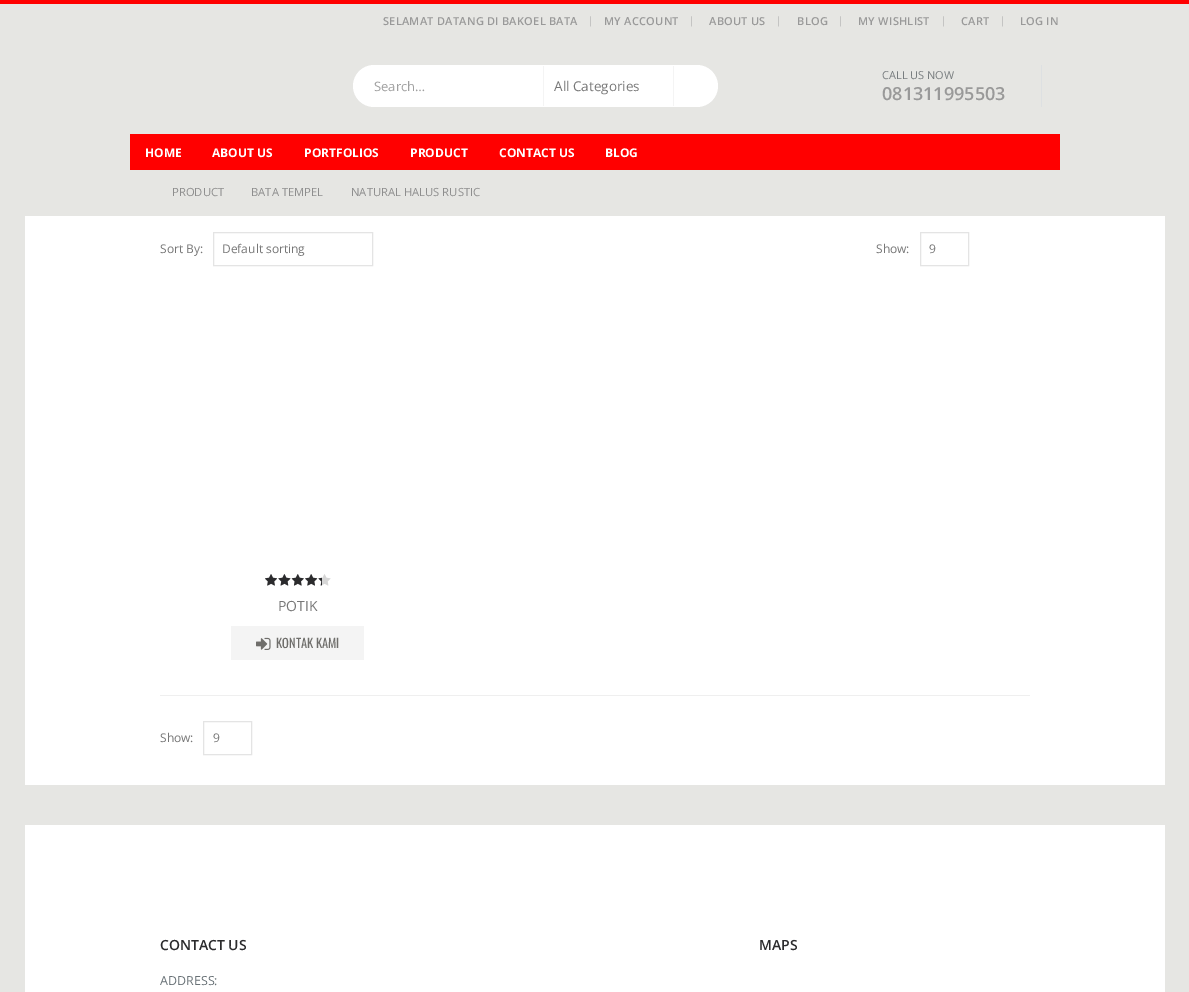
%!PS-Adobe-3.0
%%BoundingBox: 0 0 1189 992
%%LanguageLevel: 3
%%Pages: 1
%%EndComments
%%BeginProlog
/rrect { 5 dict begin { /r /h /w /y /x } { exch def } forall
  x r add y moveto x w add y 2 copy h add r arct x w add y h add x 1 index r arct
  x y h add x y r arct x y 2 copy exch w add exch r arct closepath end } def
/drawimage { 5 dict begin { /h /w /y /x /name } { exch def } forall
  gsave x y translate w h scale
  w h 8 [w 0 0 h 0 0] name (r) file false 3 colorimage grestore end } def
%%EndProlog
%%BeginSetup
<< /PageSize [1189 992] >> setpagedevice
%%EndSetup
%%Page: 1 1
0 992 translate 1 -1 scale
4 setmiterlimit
0.902 0.902 0.89 setrgbcolor
0 0 1189 992 rectfill
1 0 0 setrgbcolor
0 0 1189 4 rectfill
1 setgray
353 65 365 42 21 rrect fill
0.957 setgray
543 66 1 40 rectfill
673 66 1 40 rectfill
0.867 0.878 0.886 setrgbcolor
1041 65 1 42 rectfill
1 0 0 setrgbcolor
130 134 930 36 rectfill
1 setgray
25 216 1140 569 rectfill
0.894 setgray
213.5 232.5 159 33 rectstroke
920.5 232.5 48 33 rectstroke
(images/1.raw) 265 574 66 12 drawimage
(images/2.raw) 265 574 57 12 drawimage
0.957 setgray
231 626 133 34 rectfill
(images/3.raw) 256 637 15 13 drawimage
0.937 setgray
160 695 870 1 rectfill
0.894 setgray
203.5 721.5 48 33 rectstroke
1 setgray
25 825 1140 167 rectfill
/OpenSans-SemiBold [11 0 0 -11 0 0] selectfont
0.6 setgray
383 25 moveto 0.25 0 (SELAMAT DATANG DI BAKOEL BATA) ashow
/OpenSans-Light [10 0 0 -10 0 0] selectfont
0.659 setgray
588 24 moveto (|) show
/OpenSans-SemiBold [11 0 0 -11 0 0] selectfont
0.6 setgray
604 25 moveto 0.25 0 (MY ACCOUNT) ashow
/OpenSans-Light [10 0 0 -10 0 0] selectfont
0.659 setgray
689 24 moveto (|) show
/OpenSans-SemiBold [11 0 0 -11 0 0] selectfont
0.6 setgray
709 25 moveto 0.25 0 (ABOUT US) ashow
/OpenSans-Light [10 0 0 -10 0 0] selectfont
0.659 setgray
776 24 moveto (|) show
/OpenSans-SemiBold [11 0 0 -11 0 0] selectfont
0.6 setgray
797 25 moveto 0.25 0 (BLOG) ashow
/OpenSans-Light [10 0 0 -10 0 0] selectfont
0.659 setgray
838 24 moveto (|) show
/OpenSans-SemiBold [11 0 0 -11 0 0] selectfont
0.6 setgray
858 25 moveto 0.25 0 (MY WISHLIST) ashow
/OpenSans-Light [10 0 0 -10 0 0] selectfont
0.659 setgray
941 24 moveto (|) show
/OpenSans-SemiBold [11 0 0 -11 0 0] selectfont
0.6 setgray
961 25 moveto 0.25 0 (CART) ashow
/OpenSans-Light [10 0 0 -10 0 0] selectfont
0.659 setgray
1000 24 moveto (|) show
/OpenSans-SemiBold [11 0 0 -11 0 0] selectfont
0.6 setgray
1020 25 moveto 0.25 0 (LOG IN) ashow
/OpenSans-Regular [13 0 0 -13 0 0] selectfont
0.627 setgray
374 91 moveto (Search…) show
/OpenSans-Regular [13.5 0 0 -13.5 0 0] selectfont
0.467 setgray
554 91 moveto (All Categories) show
/OpenSans-Regular [11 0 0 -11 0 0] selectfont
0.471 0.49 0.498 setrgbcolor
882 79 moveto (CALL US NOW) show
/OpenSans-SemiBold [18 0 0 -18 0 0] selectfont
0.6 setgray
882 100 moveto (081311995503) show
/OpenSans-Bold [12 0 0 -12 0 0] selectfont
1 setgray
145 157 moveto (HOME) show
212 157 moveto (ABOUT US) show
304 157 moveto (PORTFOLIOS) show
410 157 moveto (PRODUCT) show
499 157 moveto (CONTACT US) show
605 157 moveto (BLOG) show
/OpenSans-Regular [11.25 0 0 -11.25 0 0] selectfont
0.557 setgray
172 196 moveto (PRODUCT) show
251 196 moveto (BATA TEMPEL) show
351 196 moveto (NATURAL HALUS RUSTIC) show
/OpenSans-Regular [12 0 0 -12 0 0] selectfont
0.467 setgray
160 253 moveto (Sort By:) show
222 253 moveto (Default sorting) show
876 253 moveto (Show:) show
929 253 moveto (9) show
/OpenSans-Regular [14 0 0 -14 0 0] selectfont
278 611 moveto (POTIK) show
/Oswald-Regular [12.5 0 0 -12.5 0 0] selectfont
0.435 0.431 0.42 setrgbcolor
276 648 moveto (KONTAK KAMI) show
/OpenSans-Regular [12 0 0 -12 0 0] selectfont
0.467 setgray
160 742 moveto (Show:) show
213 742 moveto (9) show
/OpenSans-SemiBold [14 0 0 -14 0 0] selectfont
0.169 0.169 0.176 setrgbcolor
160 950 moveto (CONTACT US) show
/OpenSans-Regular [12.5 0 0 -12.5 0 0] selectfont
0.408 0.443 0.463 setrgbcolor
160 985 moveto (ADDRESS:) show
/OpenSans-SemiBold [14 0 0 -14 0 0] selectfont
0.169 0.169 0.176 setrgbcolor
759 950 moveto (MAPS) show
showpage
%%EOF
